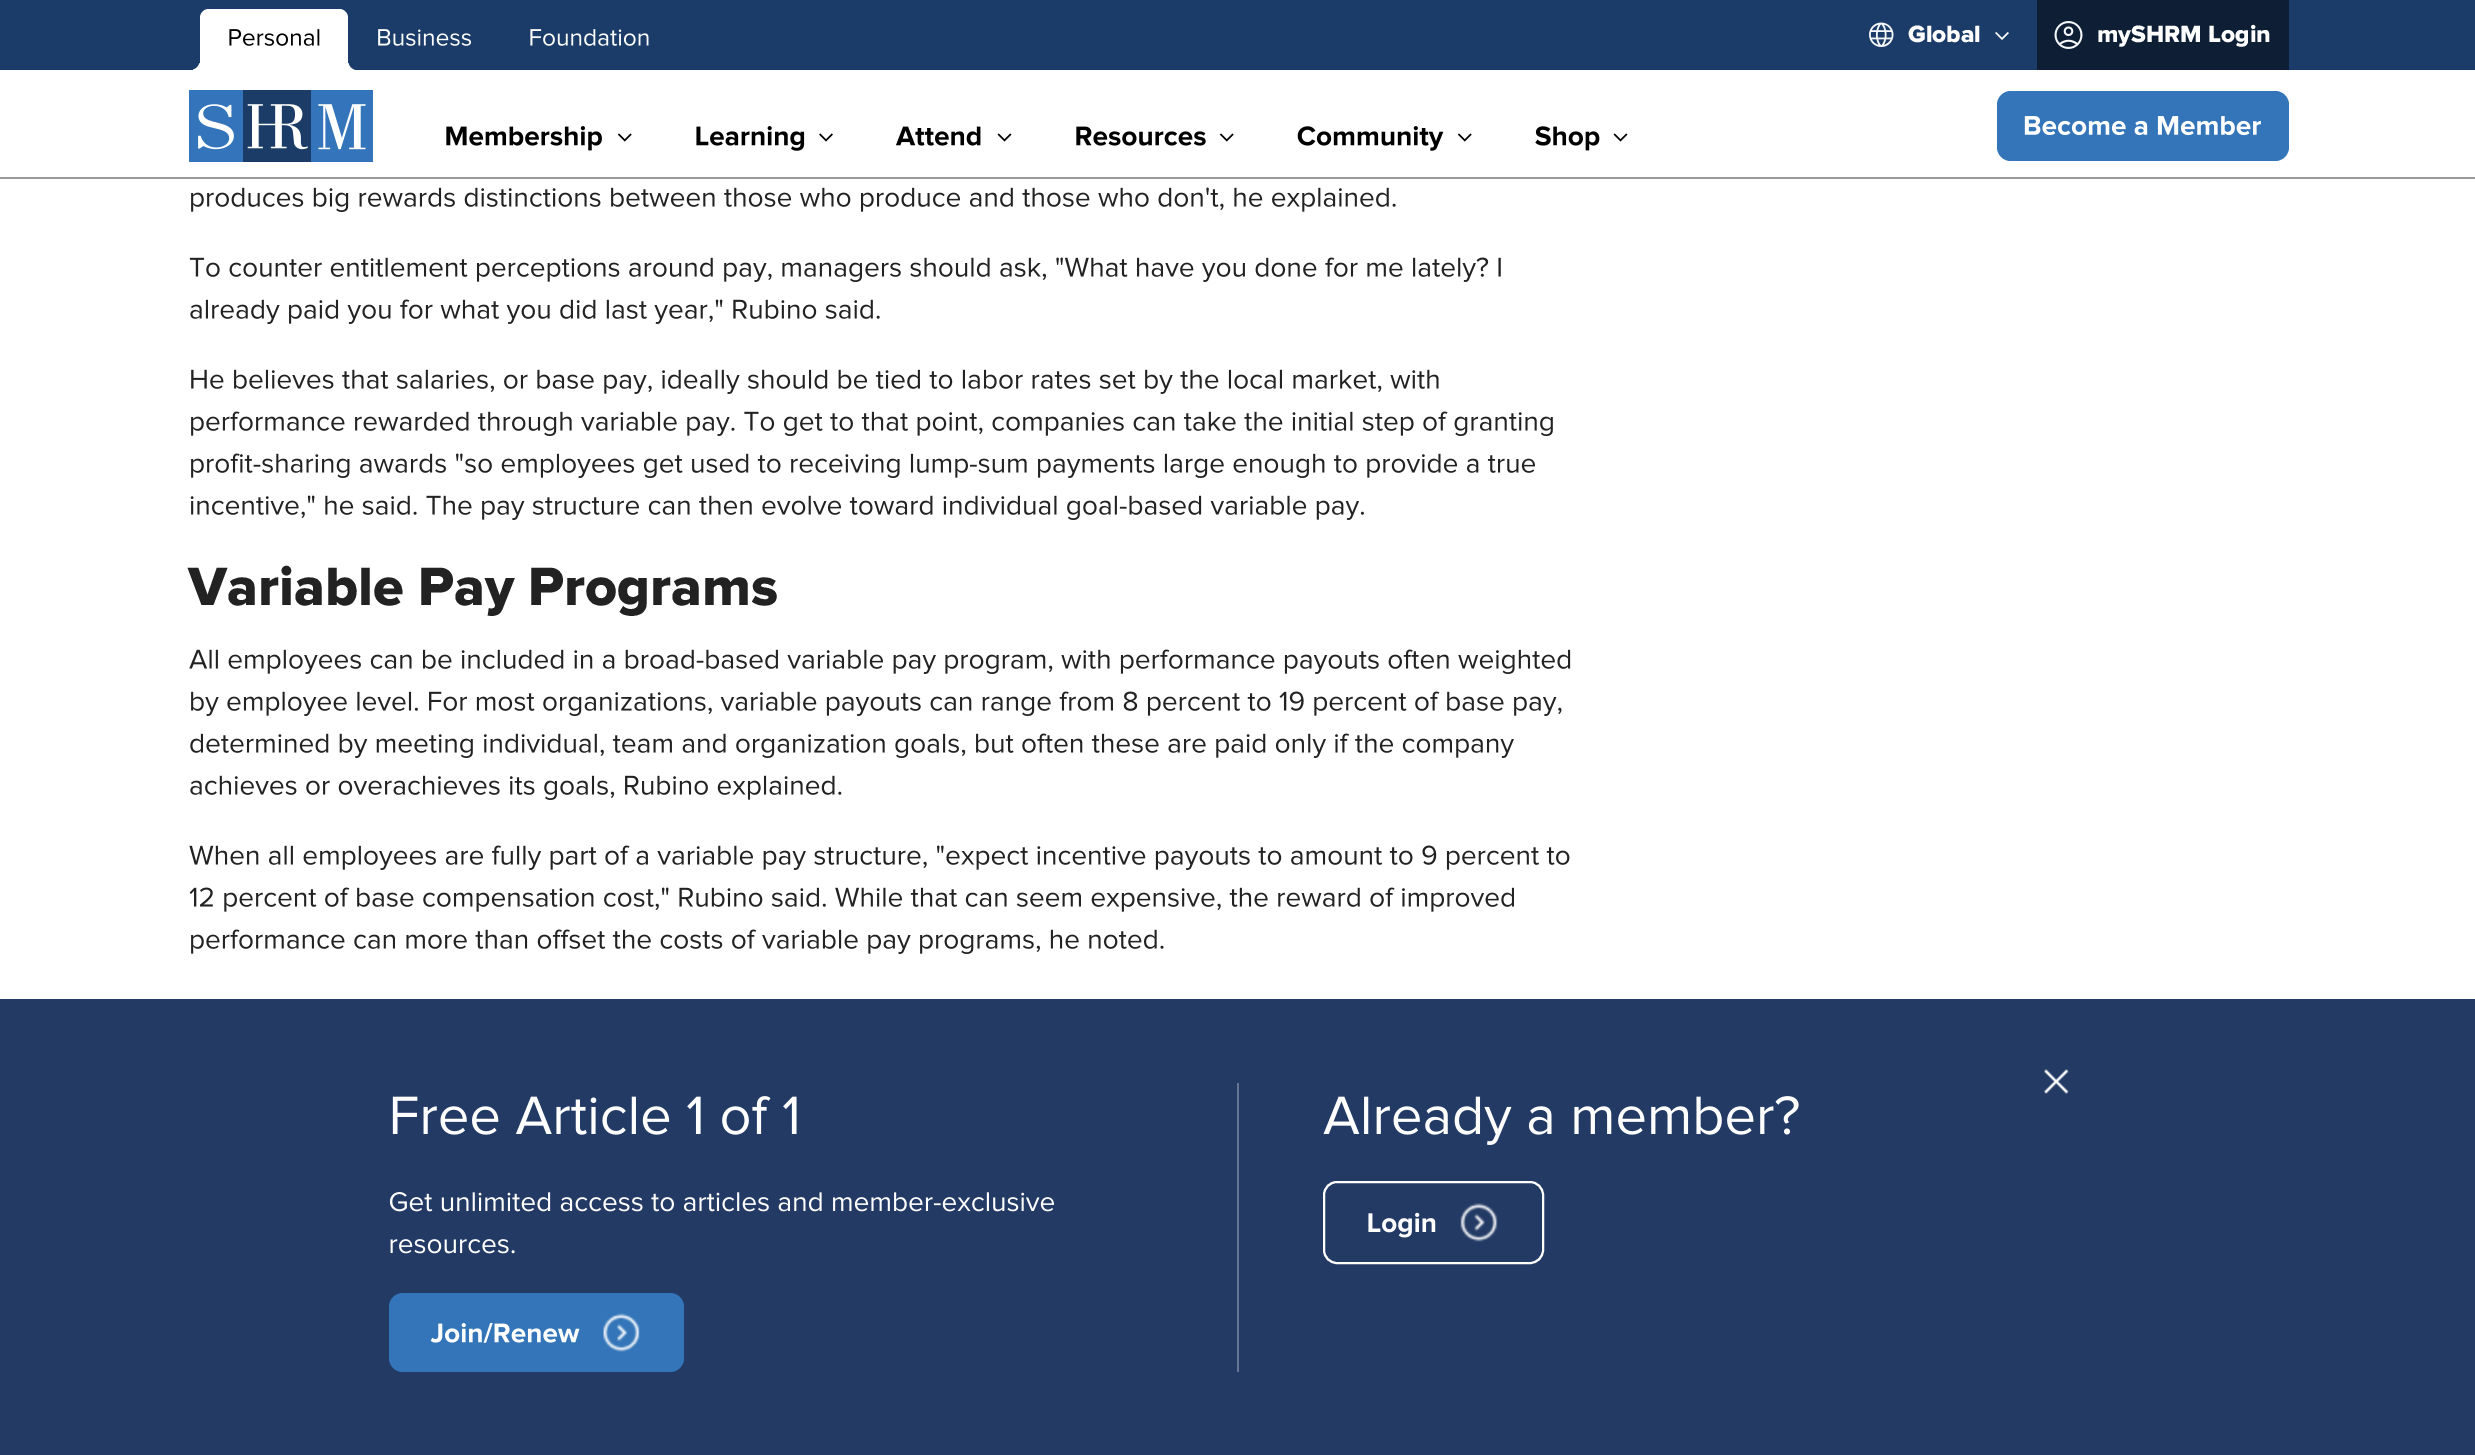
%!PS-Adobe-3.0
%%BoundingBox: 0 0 2475 1455
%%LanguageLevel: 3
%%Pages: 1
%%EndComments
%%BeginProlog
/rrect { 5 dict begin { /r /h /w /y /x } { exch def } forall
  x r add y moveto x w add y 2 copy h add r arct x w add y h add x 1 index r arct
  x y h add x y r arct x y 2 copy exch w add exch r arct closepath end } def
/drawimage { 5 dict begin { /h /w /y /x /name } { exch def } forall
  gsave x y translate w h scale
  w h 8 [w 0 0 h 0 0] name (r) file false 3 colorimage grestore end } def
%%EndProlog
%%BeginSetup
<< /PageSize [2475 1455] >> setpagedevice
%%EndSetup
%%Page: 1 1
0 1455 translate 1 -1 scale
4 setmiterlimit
1 setgray
0 0 2475 1455 rectfill
0.106 0.235 0.412 setrgbcolor
0 0 2475 70 rectfill
1 setgray
newpath 209 9 moveto 339 9 lineto 344 9 348 13 348 18 curveto 348 70 lineto 200 70 lineto 200 18 lineto 200 13 204 9 209 9 curveto closepath fill
(images/1.raw) 229 29 91 17 drawimage
newpath 193 69.5 moveto 193 74 lineto 200.5 74 203 69.5 203 63 curveto 199.5 63 lineto 198.5 66.5 196 69 193 69.5 curveto closepath fill
newpath 345 63 moveto 345 69.5 347.5 74 355 74 curveto 355 70 lineto 351.5 69 349 66.5 348.5 63 curveto closepath fill
(images/2.raw) 378 29 93 17 drawimage
(images/3.raw) 530 29 119 17 drawimage
(images/4.raw) 1869 22 25 25 drawimage
(images/5.raw) 1995 32 14 8 drawimage
0.055 0.118 0.208 setrgbcolor
2037 0 252 70 rectfill
(images/6.raw) 2054 21 29 28 drawimage
0.6 setgray
0 177 2475 2 rectfill
(images/7.raw) 189 90 184 72 drawimage
(images/8.raw) 446 126 156 25 drawimage
(images/9.raw) 617 133 15 9 drawimage
(images/10.raw) 696 126 109 25 drawimage
(images/11.raw) 819 133 14 9 drawimage
(images/12.raw) 896 126 85 20 drawimage
(images/13.raw) 997 133 15 9 drawimage
(images/14.raw) 1076 126 130 20 drawimage
(images/9.raw) 1219 133 15 9 drawimage
(images/15.raw) 1297 126 147 25 drawimage
(images/9.raw) 1457 133 15 9 drawimage
(images/16.raw) 1535 126 65 25 drawimage
(images/13.raw) 1613 133 15 9 drawimage
0.2 0.459 0.722 setrgbcolor
1997 91 292 70 14 rrect fill
(images/17.raw) 2024 116 237 20 drawimage
(images/18.raw) 191 187 1205 25 drawimage
(images/19.raw) 189 257 1312 25 drawimage
(images/20.raw) 190 299 690 25 drawimage
(images/21.raw) 191 369 1248 25 drawimage
(images/22.raw) 191 411 1362 25 drawimage
(images/23.raw) 191 453 1344 25 drawimage
(images/24.raw) 190 495 1174 25 drawimage
(images/25.raw) 189 649 1382 25 drawimage
(images/26.raw) 191 691 1371 25 drawimage
(images/27.raw) 190 733 1324 25 drawimage
(images/28.raw) 190 775 652 25 drawimage
(images/29.raw) 189 845 1381 25 drawimage
(images/30.raw) 189 887 1325 25 drawimage
(images/31.raw) 191 929 973 25 drawimage
0.137 0.227 0.396 setrgbcolor
0 999 2475 456 rectfill
0.396 0.459 0.576 setrgbcolor
1237 1083 2 289 rectfill
(images/32.raw) 392 1096 278 39 drawimage
(images/33.raw) 687 1096 110 39 drawimage
(images/34.raw) 389 1192 665 20 drawimage
(images/35.raw) 390 1239 125 15 drawimage
0.2 0.459 0.722 setrgbcolor
389 1293 295 79 14 rrect fill
(images/36.raw) 430 1323 150 20 drawimage
(images/37.raw) 603 1313 37 39 drawimage
(images/38.raw) 1323 1096 476 49 drawimage
1 setgray
2 setlinewidth
1324 1182 219 81 13 rrect stroke
(images/39.raw) 1368 1212 68 26 drawimage
(images/40.raw) 1460 1203 38 39 drawimage
(images/41.raw) 2044 1069 25 25 drawimage
/ProximaNova-ExtraBold [24.5 0 0 -24.5 0 0] selectfont
1908 42 moveto (Global) show
2097 42 moveto (mySHRM Login) show
/ProximaNova-ExtraBold [56 0 0 -56 0 0] selectfont
0.133 setgray
188 605 moveto (Variable Pay Programs) show
showpage
%%EOF
